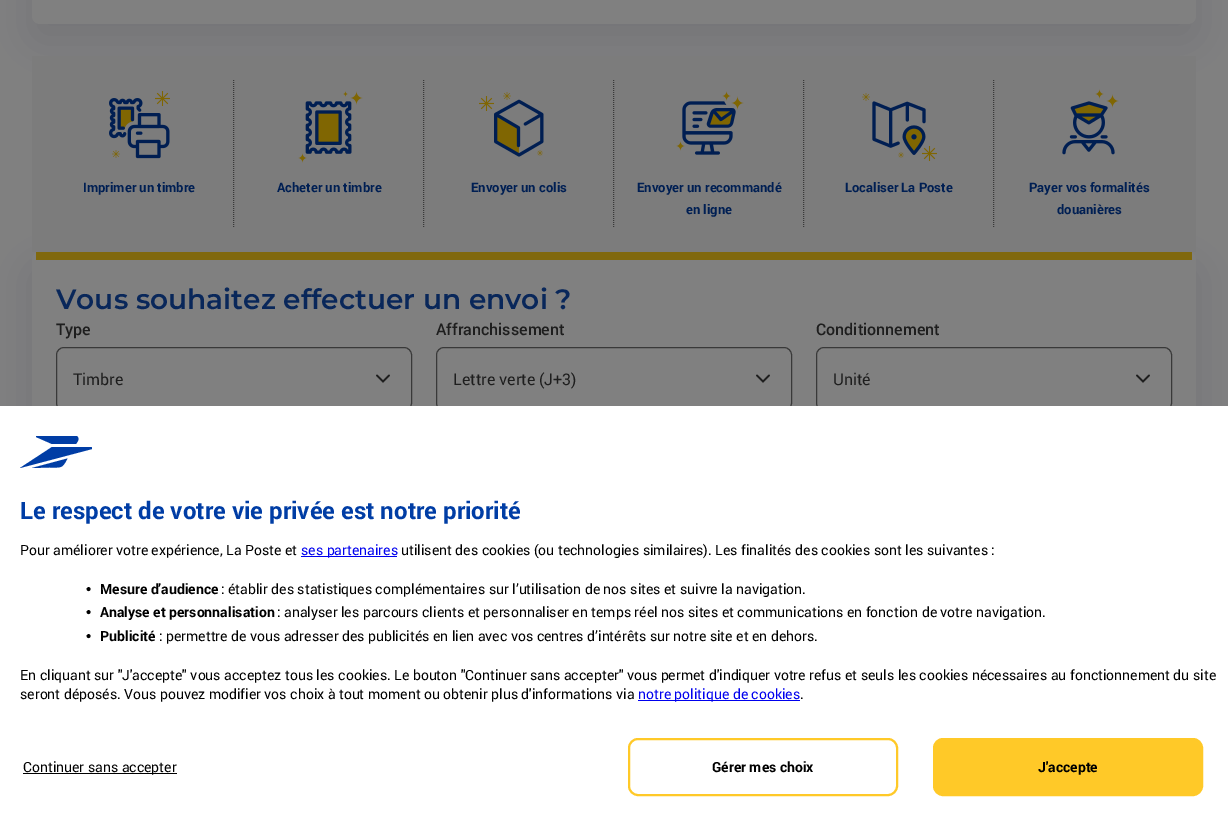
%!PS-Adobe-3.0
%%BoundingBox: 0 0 1228 826
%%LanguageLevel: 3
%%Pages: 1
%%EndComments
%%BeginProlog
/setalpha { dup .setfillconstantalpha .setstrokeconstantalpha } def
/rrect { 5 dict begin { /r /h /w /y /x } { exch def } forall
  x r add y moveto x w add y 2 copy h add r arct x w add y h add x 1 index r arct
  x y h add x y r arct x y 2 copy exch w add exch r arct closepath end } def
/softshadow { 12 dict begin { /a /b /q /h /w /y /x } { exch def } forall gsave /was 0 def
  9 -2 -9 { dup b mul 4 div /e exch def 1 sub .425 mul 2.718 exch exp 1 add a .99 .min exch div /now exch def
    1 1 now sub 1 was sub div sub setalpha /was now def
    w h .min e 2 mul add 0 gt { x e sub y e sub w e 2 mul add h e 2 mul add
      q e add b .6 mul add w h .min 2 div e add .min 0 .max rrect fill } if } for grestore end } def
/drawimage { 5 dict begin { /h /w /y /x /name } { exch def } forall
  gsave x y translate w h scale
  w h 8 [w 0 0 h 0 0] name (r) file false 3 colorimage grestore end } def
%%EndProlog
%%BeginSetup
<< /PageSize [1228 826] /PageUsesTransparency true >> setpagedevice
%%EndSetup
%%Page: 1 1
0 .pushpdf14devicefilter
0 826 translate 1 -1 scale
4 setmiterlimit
0.502 setgray
0 0 1228 826 rectfill
0.204 0.216 0.282 setrgbcolor
31 -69 1166 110 9 20 0.15 softshadow
0.502 setgray
32 -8 1164 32 8 rrect fill
0.204 0.216 0.282 setrgbcolor
31 267 1166 377 9 20 0.15 softshadow
0.486 setgray
32 56 1164 196 rectfill
(images/1.raw) 109 91 61 68 drawimage
0.224 setgray
[1 1] 0 setdash
newpath 233.5 80 moveto 233.5 228 lineto stroke
(images/2.raw) 298 91 65 72 drawimage
newpath 423.5 80 moveto 423.5 228 lineto stroke
(images/3.raw) 479 92 65 65 drawimage
newpath 613.5 80 moveto 613.5 228 lineto stroke
(images/4.raw) 676 91 68 64 drawimage
newpath 803.5 80 moveto 803.5 228 lineto stroke
(images/5.raw) 862 93 75 68 drawimage
newpath 993.5 80 moveto 993.5 228 lineto stroke
(images/6.raw) 1062 89 57 66 drawimage
0.502 setgray
32 252 1164 375 8 rrect fill
0.502 0.408 0.051 setrgbcolor
36 252 1156 8 rectfill
0.224 setgray
[] 0 setdash
56.5 347.5 355 63 7.5 rrect stroke
(images/7.raw) 376 374 14 9 drawimage
436.5 347.5 355 63 7.5 rrect stroke
(images/7.raw) 756 374 14 9 drawimage
816.5 347.5 355 63 7.5 rrect stroke
(images/7.raw) 1136 374 14 9 drawimage
1 setgray
0 406 1228 420 rectfill
0 0.239 0.647 setrgbcolor
newpath 36 437 moveto 52 444 lineto 76 444 lineto 78 441 lineto 79 438 78 436 76 436 curveto 36 436 lineto 36 436 36 437 36 437 curveto closepath fill
newpath 52 447 moveto 91 447 lineto 92 447 92 448 92 449 curveto 20 468 lineto closepath fill
newpath 32 468 moveto 49.5 467.5 lineto 62 467.5 62 468.5 67.5 458.5 curveto closepath fill
0 0 0.933 setrgbcolor
301 556 96 1 rectfill
638 700 162 1 rectfill
0 setgray
23 773 154 1 rectfill
1 0.788 0.157 setrgbcolor
2 setlinewidth
629 739 268 56 9 rrect stroke
934 739 268 56 9 rrect gsave fill grestore
stroke
/Roboto-Bold [13 0 0 -13 0 0] selectfont
0 0.122 0.325 setrgbcolor
83 192 moveto (Imprimer un timbre) show
277 192 moveto (Acheter un timbre) show
471 192 moveto (Envoyer un colis) show
637 192 moveto (Envoyer un recommandé) show
686 214 moveto (en ligne) show
845 192 moveto (Localiser La Poste) show
1029 192 moveto (Payer vos formalités) show
1057 214 moveto (douanières) show
/Montserrat-SemiBold [28 0 0 -28 0 0] selectfont
0.035 0.153 0.353 setrgbcolor
56 309 moveto (Vous souhaitez effectuer un envoi ?) show
/Roboto-Medium [16 0 0 -16 0 0] selectfont
0.118 setgray
56 335 moveto (Type) show
/Roboto-Regular [16 0 0 -16 0 0] selectfont
73 385 moveto (Timbre) show
/Roboto-Medium [16 0 0 -16 0 0] selectfont
436 335 moveto (Affranchissement) show
/Roboto-Regular [16 0 0 -16 0 0] selectfont
453 385 moveto (Lettre verte \(J+3\)) show
/Roboto-Medium [16 0 0 -16 0 0] selectfont
816 335 moveto (Conditionnement) show
/Roboto-Regular [16 0 0 -16 0 0] selectfont
833 385 moveto (Unité) show
/Roboto-Bold [24 0 0 -24 0 0] selectfont
0 0.239 0.647 setrgbcolor
20 519 moveto (Le respect de votre vie privée est notre priorité) show
/Roboto-Regular [14 0 0 -14 0 0] selectfont
0 setgray
20 555 moveto (Pour améliorer votre expérience, La Poste et) show
0 0 0.933 setrgbcolor
301 555 moveto (ses partenaires) show
0 setgray
401 555 moveto (utilisent des cookies \(ou technologies similaires\). Les finalités des cookies sont les suivantes :) show
/LiberationSans-Regular [15 0 0 -15 0 0] selectfont
86 594 moveto (•) show
/Roboto-Bold [14 0 0 -14 0 0] selectfont
100 594 moveto (Mesure d’audience) show
/Roboto-Regular [14 0 0 -14 0 0] selectfont
221 594 moveto (: établir des statistiques complémentaires sur l’utilisation de nos sites et suivre la navigation.) show
/LiberationSans-Regular [15 0 0 -15 0 0] selectfont
86 617 moveto (•) show
/Roboto-Bold [14 0 0 -14 0 0] selectfont
100 617 moveto (Analyse et personnalisation) show
/Roboto-Regular [14 0 0 -14 0 0] selectfont
277 617 moveto (: analyser les parcours clients et personnaliser en temps réel nos sites et communications en fonction de votre navigation.) show
/LiberationSans-Regular [15 0 0 -15 0 0] selectfont
86 641 moveto (•) show
/Roboto-Bold [14 0 0 -14 0 0] selectfont
100 641 moveto (Publicité) show
/Roboto-Regular [14 0 0 -14 0 0] selectfont
159 641 moveto (: permettre de vous adresser des publicités en lien avec vos centres d’intérêts sur notre site et en dehors.) show
20 680 moveto (En cliquant sur "J'accepte" vous acceptez tous les cookies. Le bouton "Continuer sans accepter" vous permet d'indiquer votre refus et seuls les cookies nécessaires au fonctionnement du site) show
20 699 moveto (seront déposés. Vous pouvez modifier vos choix à tout moment ou obtenir plus d'informations via) show
0 0 0.933 setrgbcolor
638 699 moveto (notre politique de cookies) show
0 setgray
800 699 moveto (.) show
23 772 moveto (Continuer sans accepter) show
/Roboto-Bold [14 0 0 -14 0 0] selectfont
712 772 moveto (Gérer mes choix) show
1038 772 moveto (J'accepte) show
.poppdf14devicefilter showpage
%%EOF
